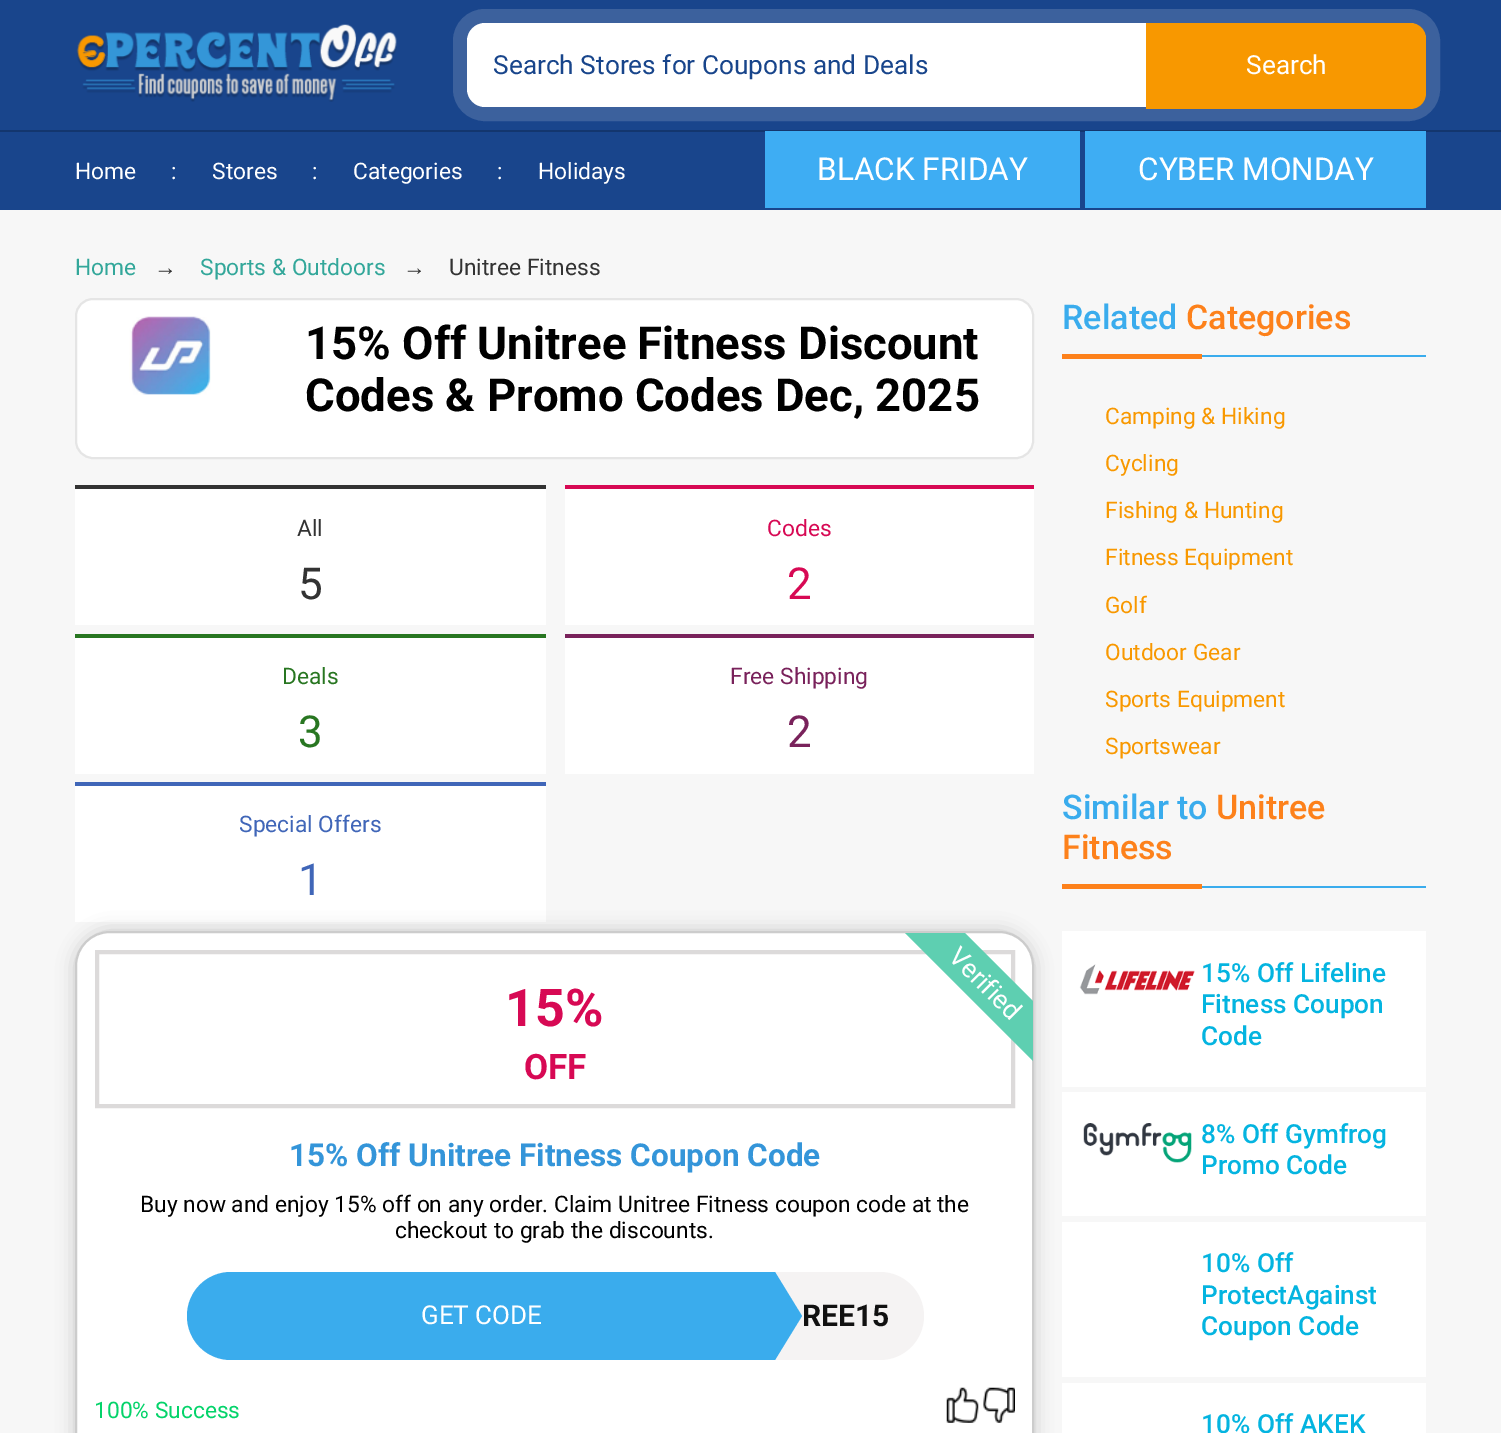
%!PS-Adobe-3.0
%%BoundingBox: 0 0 1501 1433
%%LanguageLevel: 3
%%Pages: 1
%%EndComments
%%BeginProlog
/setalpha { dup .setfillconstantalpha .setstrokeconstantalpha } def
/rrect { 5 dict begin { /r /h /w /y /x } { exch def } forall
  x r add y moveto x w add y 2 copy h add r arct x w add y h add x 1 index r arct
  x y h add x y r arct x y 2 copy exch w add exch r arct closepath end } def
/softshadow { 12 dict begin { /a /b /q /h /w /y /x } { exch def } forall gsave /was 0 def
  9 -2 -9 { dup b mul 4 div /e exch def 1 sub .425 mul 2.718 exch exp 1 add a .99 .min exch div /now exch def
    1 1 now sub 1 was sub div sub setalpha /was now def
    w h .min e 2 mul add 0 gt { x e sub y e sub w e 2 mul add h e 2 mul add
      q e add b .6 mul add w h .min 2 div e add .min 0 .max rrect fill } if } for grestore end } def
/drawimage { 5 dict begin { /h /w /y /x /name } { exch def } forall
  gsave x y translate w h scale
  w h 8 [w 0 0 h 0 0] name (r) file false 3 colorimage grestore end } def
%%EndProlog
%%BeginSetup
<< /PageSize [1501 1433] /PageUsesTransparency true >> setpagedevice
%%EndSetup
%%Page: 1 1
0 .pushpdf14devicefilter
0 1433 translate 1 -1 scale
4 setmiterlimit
0.969 setgray
0 0 1501 1433 rectfill
0.098 0.271 0.549 setrgbcolor
0 0 1501 210 rectfill
0.075 0.212 0.431 setrgbcolor
0 130 1501 2 rectfill
(images/1.raw) 76 24 321 78 drawimage
0.235 0.38 0.616 setrgbcolor
14 setlinewidth
460 16 973 98 25 rrect stroke
1 setgray
467 23 959 84 18 rrect fill
0.973 0.596 0 setrgbcolor
newpath 1146 23 moveto 1410 23 lineto 1419 23 1426 30 1426 39 curveto 1426 93 lineto 1426 102 1419 109 1410 109 curveto 1146 109 lineto closepath fill
0.243 0.678 0.953 setrgbcolor
765 131 315 77 rectfill
1085 131 341 77 rectfill
1 setgray
76 299 957 159 17 rrect gsave fill grestore
0.898 setgray
2 setlinewidth
stroke
(images/2.raw) 129 316 82 79 drawimage
1 setgray
75 489 471 136 rectfill
0.2 setgray
75 485 471 4 rectfill
1 setgray
565 489 469 136 rectfill
0.843 0.035 0.329 setrgbcolor
565 485 469 4 rectfill
1 setgray
75 638 471 136 rectfill
0.157 0.463 0.129 setrgbcolor
75 634 471 4 rectfill
1 setgray
565 638 469 136 rectfill
0.475 0.133 0.357 setrgbcolor
565 634 469 4 rectfill
1 setgray
75 786 471 136 rectfill
0.251 0.4 0.722 setrgbcolor
75 782 471 4 rectfill
0 setgray
75 931 959 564 35 9 0.2 softshadow
1 setgray
76 932 957 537 34 rrect gsave fill grestore
0.8 setgray
stroke
0.863 0.855 0.855 setrgbcolor
4 setlinewidth
97 952 916 154 rectstroke
0.961 0.953 0.953 setrgbcolor
187 1272 737 88 44 rrect fill
0.227 0.675 0.929 setrgbcolor
newpath 231 1272 moveto 775 1272 lineto 775 1360 lineto 231 1360 lineto 206.5 1360 187 1340.5 187 1316 curveto 187 1291.5 206.5 1272 231 1272 curveto closepath fill
newpath 775 1360 moveto 775 1272 lineto 802 1316 lineto closepath fill
(images/3.raw) 946 1387 33 36 drawimage
(images/4.raw) 983 1387 32 36 drawimage
0.369 0.812 0.694 setrgbcolor
newpath 1033 1061 moveto 905 933 lineto 965 933 lineto 1033 1001 lineto closepath fill
0.227 0.675 0.929 setrgbcolor
1202 355 224 2 rectfill
0.992 0.506 0.106 setrgbcolor
1062 354 140 5 rectfill
0.227 0.675 0.929 setrgbcolor
1202 886 224 2 rectfill
0.992 0.506 0.106 setrgbcolor
1062 884 140 5 rectfill
1 setgray
1062 931 364 156 rectfill
(images/5.raw) 1079 964 116 31 drawimage
1062 1092 364 124 rectfill
(images/6.raw) 1083 1123 109 40 drawimage
1062 1222 364 155 rectfill
1062 1383 364 50 rectfill
/Roboto-Regular [26.25 0 0 -26.25 0 0] selectfont
0.094 0.271 0.545 setrgbcolor
493 74 moveto (Search Stores for Coupons and Deals) show
1 setgray
1246 74 moveto (Search) show
/Roboto-Regular [22.75 0 0 -22.75 0 0] selectfont
75 179 moveto (Home) show
171 179 moveto (:) show
212 179 moveto (Stores) show
312 179 moveto (:) show
353 179 moveto (Categories) show
497 179 moveto (:) show
538 179 moveto (Holidays) show
/Roboto-Regular [31.5 0 0 -31.5 0 0] selectfont
817 180 moveto (BLACK FRIDAY) show
1138 180 moveto (CYBER MONDAY) show
/Roboto-Regular [22.75 0 0 -22.75 0 0] selectfont
0.2 0.655 0.604 setrgbcolor
75 275 moveto (Home) show
/LiberationSans-Regular [22.75 0 0 -22.75 0 0] selectfont
0.2 setgray
154 275 moveto (→) show
/Roboto-Regular [22.75 0 0 -22.75 0 0] selectfont
0.2 0.655 0.604 setrgbcolor
200 275 moveto (Sports & Outdoors) show
/LiberationSans-Regular [22.75 0 0 -22.75 0 0] selectfont
0.2 setgray
403 275 moveto (→) show
/Roboto-Regular [22.75 0 0 -22.75 0 0] selectfont
449 275 moveto (Unitree Fitness) show
/Roboto-Bold [45.5 0 0 -45.5 0 0] selectfont
0 setgray
305 359 moveto (15% Off Unitree Fitness Discount) show
305 411 moveto (Codes & Promo Codes Dec, 2025) show
/Roboto-Regular [22.75 0 0 -22.75 0 0] selectfont
0.2 setgray
297 536 moveto (All) show
/Roboto-Regular [44 0 0 -44 0 0] selectfont
298 599 moveto (5) show
/Roboto-Regular [22.75 0 0 -22.75 0 0] selectfont
0.843 0.035 0.329 setrgbcolor
767 536 moveto (Codes) show
/Roboto-Regular [44 0 0 -44 0 0] selectfont
787 599 moveto (2) show
/Roboto-Regular [22.75 0 0 -22.75 0 0] selectfont
0.157 0.463 0.129 setrgbcolor
282 684 moveto (Deals) show
/Roboto-Regular [44 0 0 -44 0 0] selectfont
298 747 moveto (3) show
/Roboto-Regular [22.75 0 0 -22.75 0 0] selectfont
0.475 0.133 0.357 setrgbcolor
730 684 moveto (Free Shipping) show
/Roboto-Regular [44 0 0 -44 0 0] selectfont
787 747 moveto (2) show
/Roboto-Regular [22.75 0 0 -22.75 0 0] selectfont
0.251 0.4 0.722 setrgbcolor
239 832 moveto (Special Offers) show
/Roboto-Regular [44 0 0 -44 0 0] selectfont
298 895 moveto (1) show
/Roboto-Bold [52 0 0 -52 0 0] selectfont
0.843 0.035 0.329 setrgbcolor
505 1026 moveto (15%) show
/Roboto-Bold [35 0 0 -35 0 0] selectfont
524 1079 moveto (OFF) show
/Roboto-Bold [31.5 0 0 -31.5 0 0] selectfont
0.204 0.584 0.851 setrgbcolor
289 1166 moveto (15% Off Unitree Fitness Coupon Code) show
/Roboto-Regular [22.75 0 0 -22.75 0 0] selectfont
0 setgray
140 1212 moveto (Buy now and enjoy 15% off on any order. Claim Unitree Fitness coupon code at the) show
395 1238 moveto (checkout to grab the discounts.) show
/Roboto-Regular [26 0 0 -26 0 0] selectfont
1 setgray
421 1324 moveto (GET CODE) show
/Roboto-Bold [30 0 0 -30 0 0] selectfont
0.067 setgray
802 1326 moveto (REE15) show
/Roboto-Regular [22.75 0 0 -22.75 0 0] selectfont
0.016 0.827 0.416 setrgbcolor
94 1418 moveto (100% Success) show
/Roboto-Regular [26.25 0 0 -26.25 0 0] selectfont
1 setgray
gsave 947 958 translate 45 rotate 0 0 moveto (Verified) show grestore
/Roboto-Medium [34 0 0 -34 0 0] selectfont
0.227 0.675 0.929 setrgbcolor
1062 329 moveto (Related) show
0.992 0.506 0.106 setrgbcolor
1186 329 moveto (Categories) show
/Roboto-Regular [22.75 0 0 -22.75 0 0] selectfont
0.973 0.596 0 setrgbcolor
1105 424 moveto (Camping & Hiking) show
1105 471 moveto (Cycling) show
1105 518 moveto (Fishing & Hunting) show
1105 565 moveto (Fitness Equipment) show
1105 613 moveto (Golf) show
1105 660 moveto (Outdoor Gear) show
1105 707 moveto (Sports Equipment) show
1105 754 moveto (Sportswear) show
/Roboto-Medium [34 0 0 -34 0 0] selectfont
0.227 0.675 0.929 setrgbcolor
1062 819 moveto (Similar to) show
0.992 0.506 0.106 setrgbcolor
1216 819 moveto (Unitree) show
1062 859 moveto (Fitness) show
/Roboto-Medium [26.25 0 0 -26.25 0 0] selectfont
0.016 0.706 0.878 setrgbcolor
1201 982 moveto (15% Off Lifeline) show
1201 1013 moveto (Fitness Coupon) show
1201 1045 moveto (Code) show
1201 1143 moveto (8% Off Gymfrog) show
1201 1174 moveto (Promo Code) show
1201 1272 moveto (10% Off) show
1201 1304 moveto (ProtectAgainst) show
1201 1335 moveto (Coupon Code) show
1201 1433 moveto (10% Off AKEK) show
.poppdf14devicefilter showpage
%%EOF
